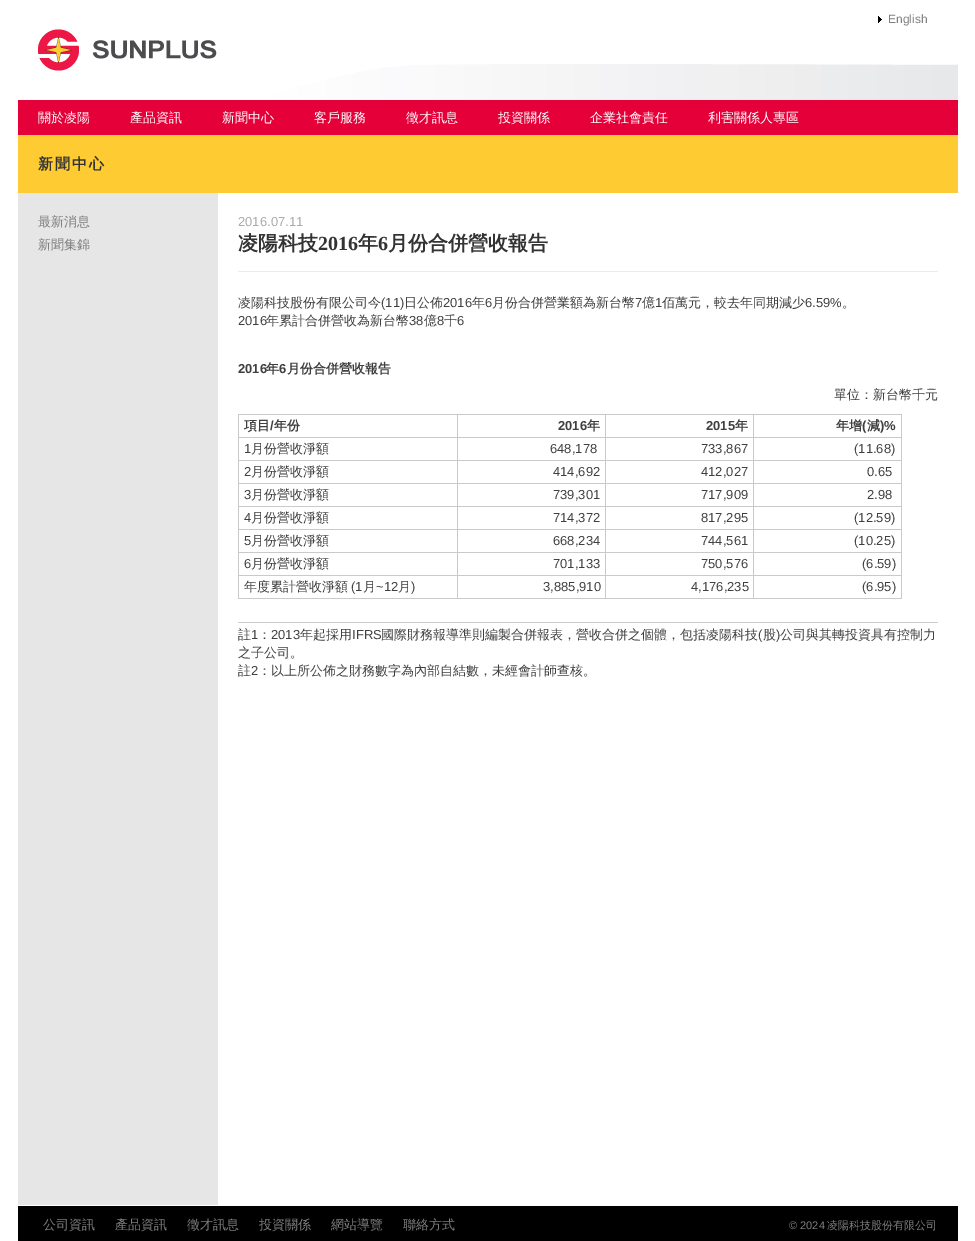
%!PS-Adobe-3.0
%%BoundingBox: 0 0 975 1241
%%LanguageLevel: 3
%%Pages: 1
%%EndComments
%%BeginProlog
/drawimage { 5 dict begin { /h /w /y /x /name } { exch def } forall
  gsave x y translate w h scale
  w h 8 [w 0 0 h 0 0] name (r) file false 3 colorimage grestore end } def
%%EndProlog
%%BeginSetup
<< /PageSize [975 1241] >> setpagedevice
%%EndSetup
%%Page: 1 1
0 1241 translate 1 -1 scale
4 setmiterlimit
1 setgray
0 0 975 1241 rectfill
(images/1.raw) 18 0 940 100 drawimage
(images/2.raw) 878 16 4 7 drawimage
(images/3.raw) 38 29 179 42 drawimage
0.902 0 0.224 setrgbcolor
18 100 940 35 rectfill
1 0.796 0.196 setrgbcolor
18 135 940 58 rectfill
0.902 setgray
18 193 200 1012 rectfill
0.922 setgray
238 271 700 1 rectfill
0.792 setgray
901 414 1 185 rectfill
238 598 664 1 rectfill
238 414 663 1 rectfill
238 414 1 23 rectfill
457 414 1 23 rectfill
605 414 1 23 rectfill
753 414 1 23 rectfill
238 437 663 1 rectfill
238 437 1 23 rectfill
457 437 1 23 rectfill
605 437 1 23 rectfill
753 437 1 23 rectfill
238 460 663 1 rectfill
238 460 1 23 rectfill
457 460 1 23 rectfill
605 460 1 23 rectfill
753 460 1 23 rectfill
238 483 663 1 rectfill
238 483 1 23 rectfill
457 483 1 23 rectfill
605 483 1 23 rectfill
753 483 1 23 rectfill
238 506 663 1 rectfill
238 506 1 23 rectfill
457 506 1 23 rectfill
605 506 1 23 rectfill
753 506 1 23 rectfill
238 529 663 1 rectfill
238 529 1 23 rectfill
457 529 1 23 rectfill
605 529 1 23 rectfill
753 529 1 23 rectfill
238 552 663 1 rectfill
238 552 1 23 rectfill
457 552 1 23 rectfill
605 552 1 23 rectfill
753 552 1 23 rectfill
238 575 663 1 rectfill
238 575 1 23 rectfill
457 575 1 23 rectfill
605 575 1 23 rectfill
753 575 1 23 rectfill
238 622 700 1 rectfill
0 setgray
18 1206 940 35 rectfill
/LiberationSans-Regular [12 0 0 -12 0 0] selectfont
0.498 setgray
888 23 moveto (English) show
/WenQuanYiZenHei-Medium [13 0 0 -13 0 0] selectfont
1 setgray
38 122 moveto (關於凌陽) show
130 122 moveto (產品資訊) show
222 122 moveto (新聞中心) show
314 122 moveto (客戶服務) show
406 122 moveto (徵才訊息) show
498 122 moveto (投資關係) show
590 122 moveto (企業社會責任) show
708 122 moveto (利害關係人專區) show
/WenQuanYiZenHei-Bold [15 0 0 -15 0 0] selectfont
0.2 setgray
38 169 moveto 2 0 (新聞中心) ashow
/WenQuanYiZenHei-Medium [13 0 0 -13 0 0] selectfont
0.498 setgray
38 226 moveto (最新消息) show
38 249 moveto (新聞集錦) show
/LiberationSans-Regular [13 0 0 -13 0 0] selectfont
0.667 setgray
238 226 moveto (2016.07.11) show
/WenQuanYiZenHei-Bold [20 0 0 -20 0 0] selectfont
0.2 setgray
238 250 moveto (凌陽科技) show
/LiberationSerif-Bold [20 0 0 -20 0 0] selectfont
318 250 moveto (2016) show
/WenQuanYiZenHei-Bold [20 0 0 -20 0 0] selectfont
358 250 moveto (年) show
/LiberationSerif-Bold [20 0 0 -20 0 0] selectfont
378 250 moveto (6) show
/WenQuanYiZenHei-Bold [20 0 0 -20 0 0] selectfont
388 250 moveto (月份合併營收報告) show
/WenQuanYiZenHei-Medium [13 0 0 -13 0 0] selectfont
0.247 setgray
238 307 moveto (凌陽科技股份有限公司今) show
/LiberationSans-Regular [13 0 0 -13 0 0] selectfont
381 307 moveto (\(11\)) show
/WenQuanYiZenHei-Medium [13 0 0 -13 0 0] selectfont
404 307 moveto (日公佈) show
/LiberationSans-Regular [13 0 0 -13 0 0] selectfont
443 307 moveto (2016) show
/WenQuanYiZenHei-Medium [13 0 0 -13 0 0] selectfont
472 307 moveto (年) show
/LiberationSans-Regular [13 0 0 -13 0 0] selectfont
485 307 moveto (6) show
/WenQuanYiZenHei-Medium [13 0 0 -13 0 0] selectfont
492 307 moveto (月份合併營業額為新台幣) show
/LiberationSans-Regular [13 0 0 -13 0 0] selectfont
635 307 moveto (7) show
/WenQuanYiZenHei-Medium [13 0 0 -13 0 0] selectfont
642 307 moveto (億) show
/LiberationSans-Regular [13 0 0 -13 0 0] selectfont
655 307 moveto (1) show
/WenQuanYiZenHei-Medium [13 0 0 -13 0 0] selectfont
662 307 moveto (佰萬元，較去年同期減少) show
/LiberationSans-Regular [13 0 0 -13 0 0] selectfont
805 307 moveto (6.59%) show
/WenQuanYiZenHei-Medium [13 0 0 -13 0 0] selectfont
842 307 moveto (。) show
/LiberationSans-Regular [13 0 0 -13 0 0] selectfont
238 325 moveto (2016) show
/WenQuanYiZenHei-Medium [13 0 0 -13 0 0] selectfont
266 325 moveto (年累計合併營收為新台幣) show
/LiberationSans-Regular [13 0 0 -13 0 0] selectfont
409 325 moveto (38) show
/WenQuanYiZenHei-Medium [13 0 0 -13 0 0] selectfont
424 325 moveto (億) show
/LiberationSans-Regular [13 0 0 -13 0 0] selectfont
437 325 moveto (8) show
/WenQuanYiZenHei-Medium [13 0 0 -13 0 0] selectfont
444 325 moveto (千) show
/LiberationSans-Regular [13 0 0 -13 0 0] selectfont
457 325 moveto (6) show
/LiberationSans-Bold [13 0 0 -13 0 0] selectfont
238 373 moveto (2016) show
/WenQuanYiZenHei-Bold [13 0 0 -13 0 0] selectfont
266 373 moveto (年) show
/LiberationSans-Bold [13 0 0 -13 0 0] selectfont
279 373 moveto (6) show
/WenQuanYiZenHei-Bold [13 0 0 -13 0 0] selectfont
287 373 moveto (月份合併營收報告) show
/WenQuanYiZenHei-Medium [13 0 0 -13 0 0] selectfont
834 399 moveto (單位：新台幣千元) show
/WenQuanYiZenHei-Bold [13 0 0 -13 0 0] selectfont
244 430 moveto (項目 年份) show
/LiberationSans-Bold [13 0 0 -13 0 0] selectfont
270 430 moveto (/) show
558 430 moveto (2016) show
/WenQuanYiZenHei-Bold [13 0 0 -13 0 0] selectfont
587 430 moveto (年) show
/LiberationSans-Bold [13 0 0 -13 0 0] selectfont
706 430 moveto (2015) show
/WenQuanYiZenHei-Bold [13 0 0 -13 0 0] selectfont
735 430 moveto (年) show
836 430 moveto (年增) show
/LiberationSans-Bold [13 0 0 -13 0 0] selectfont
862 430 moveto (\() show
/WenQuanYiZenHei-Bold [13 0 0 -13 0 0] selectfont
867 430 moveto (減) show
/LiberationSans-Bold [13 0 0 -13 0 0] selectfont
880 430 moveto (\)%) show
/LiberationSans-Regular [13 0 0 -13 0 0] selectfont
244 453 moveto (1) show
/WenQuanYiZenHei-Medium [13 0 0 -13 0 0] selectfont
251 453 moveto (月份營收淨額) show
/LiberationSans-Regular [13 0 0 -13 0 0] selectfont
550 453 moveto (648,178) show
701 453 moveto (733,867) show
854 453 moveto (\(11.68\)) show
244 476 moveto (2) show
/WenQuanYiZenHei-Medium [13 0 0 -13 0 0] selectfont
251 476 moveto (月份營收淨額) show
/LiberationSans-Regular [13 0 0 -13 0 0] selectfont
553 476 moveto (414,692) show
701 476 moveto (412,027) show
867 476 moveto (0.65) show
244 499 moveto (3) show
/WenQuanYiZenHei-Medium [13 0 0 -13 0 0] selectfont
251 499 moveto (月份營收淨額) show
/LiberationSans-Regular [13 0 0 -13 0 0] selectfont
553 499 moveto (739,301) show
701 499 moveto (717,909) show
867 499 moveto (2.98) show
244 522 moveto (4) show
/WenQuanYiZenHei-Medium [13 0 0 -13 0 0] selectfont
251 522 moveto (月份營收淨額) show
/LiberationSans-Regular [13 0 0 -13 0 0] selectfont
553 522 moveto (714,372) show
701 522 moveto (817,295) show
854 522 moveto (\(12.59\)) show
244 545 moveto (5) show
/WenQuanYiZenHei-Medium [13 0 0 -13 0 0] selectfont
251 545 moveto (月份營收淨額) show
/LiberationSans-Regular [13 0 0 -13 0 0] selectfont
553 545 moveto (668,234) show
701 545 moveto (744,561) show
854 545 moveto (\(10.25\)) show
244 568 moveto (6) show
/WenQuanYiZenHei-Medium [13 0 0 -13 0 0] selectfont
251 568 moveto (月份營收淨額) show
/LiberationSans-Regular [13 0 0 -13 0 0] selectfont
553 568 moveto (701,133) show
701 568 moveto (750,576) show
862 568 moveto (\(6.59\)) show
/WenQuanYiZenHei-Medium [13 0 0 -13 0 0] selectfont
244 591 moveto (年度累計營收淨額) show
/LiberationSans-Regular [13 0 0 -13 0 0] selectfont
351 591 moveto (\(1) show
/WenQuanYiZenHei-Medium [13 0 0 -13 0 0] selectfont
363 591 moveto (月) show
/LiberationSans-Regular [13 0 0 -13 0 0] selectfont
376 591 moveto (~12) show
/WenQuanYiZenHei-Medium [13 0 0 -13 0 0] selectfont
398 591 moveto (月) show
/LiberationSans-Regular [13 0 0 -13 0 0] selectfont
411 591 moveto (\)) show
543 591 moveto (3,885,910) show
691 591 moveto (4,176,235) show
862 591 moveto (\(6.95\)) show
/WenQuanYiZenHei-Medium [13 0 0 -13 0 0] selectfont
238 639 moveto (註) show
/LiberationSans-Regular [13 0 0 -13 0 0] selectfont
251 639 moveto (1) show
/WenQuanYiZenHei-Medium [13 0 0 -13 0 0] selectfont
258 639 moveto (：) show
/LiberationSans-Regular [13 0 0 -13 0 0] selectfont
271 639 moveto (2013) show
/WenQuanYiZenHei-Medium [13 0 0 -13 0 0] selectfont
300 639 moveto (年起採用) show
/LiberationSans-Regular [13 0 0 -13 0 0] selectfont
352 639 moveto (IFRS) show
/WenQuanYiZenHei-Medium [13 0 0 -13 0 0] selectfont
381 639 moveto (國際財務報導準則編製合併報表，營收合併之個體，包括凌陽科技) show
/LiberationSans-Regular [13 0 0 -13 0 0] selectfont
758 639 moveto (\() show
/WenQuanYiZenHei-Medium [13 0 0 -13 0 0] selectfont
763 639 moveto (股) show
/LiberationSans-Regular [13 0 0 -13 0 0] selectfont
776 639 moveto (\)) show
/WenQuanYiZenHei-Medium [13 0 0 -13 0 0] selectfont
780 639 moveto (公司與其轉投資具有控制力) show
238 657 moveto (之子公司。) show
238 675 moveto (註) show
/LiberationSans-Regular [13 0 0 -13 0 0] selectfont
251 675 moveto (2) show
/WenQuanYiZenHei-Medium [13 0 0 -13 0 0] selectfont
258 675 moveto (：以上所公佈之財務數字為內部自結數，未經會計師查核。) show
0.498 setgray
43 1229 moveto (公司資訊) show
115 1229 moveto (產品資訊) show
187 1229 moveto (徵才訊息) show
259 1229 moveto (投資關係) show
331 1229 moveto (網站導覽) show
403 1229 moveto (聯絡方式) show
/LiberationSans-Regular [11 0 0 -11 0 0] selectfont
789 1229 moveto (© 2024) show
/WenQuanYiZenHei-Medium [11 0 0 -11 0 0] selectfont
827 1229 moveto (凌陽科技股份有限公司) show
showpage
%%EOF
